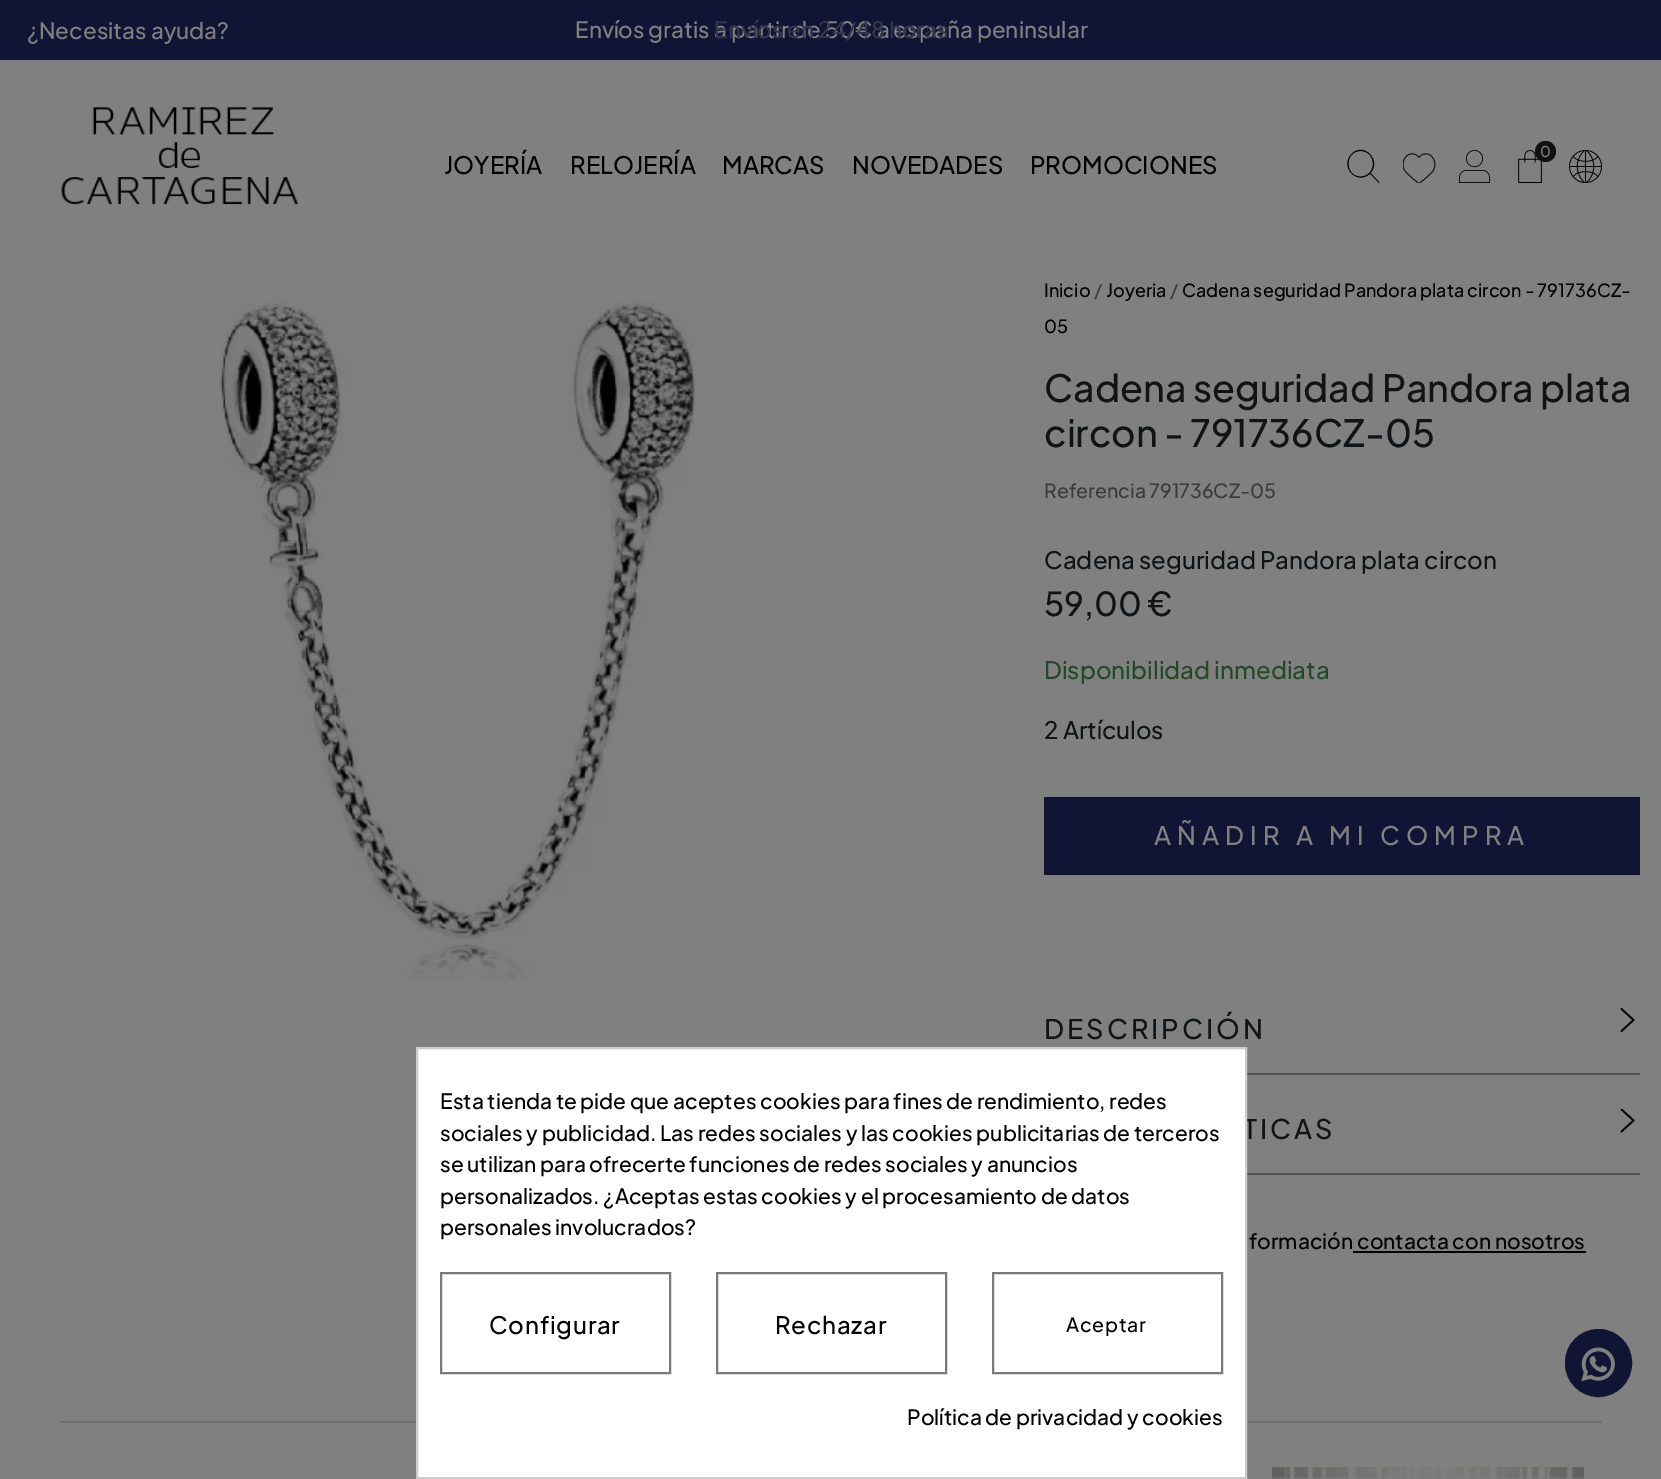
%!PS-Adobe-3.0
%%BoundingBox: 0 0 1661 1479
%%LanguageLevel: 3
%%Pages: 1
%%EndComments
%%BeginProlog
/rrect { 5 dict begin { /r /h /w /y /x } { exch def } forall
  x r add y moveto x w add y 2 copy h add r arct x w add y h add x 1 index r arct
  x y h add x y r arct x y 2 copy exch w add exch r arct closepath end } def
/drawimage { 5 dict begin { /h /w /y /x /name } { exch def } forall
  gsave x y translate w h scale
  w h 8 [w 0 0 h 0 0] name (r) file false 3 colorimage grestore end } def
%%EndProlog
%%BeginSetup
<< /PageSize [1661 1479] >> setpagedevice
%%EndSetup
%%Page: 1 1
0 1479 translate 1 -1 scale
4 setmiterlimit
0.502 setgray
0 0 1661 1479 rectfill
0.067 0.082 0.208 setrgbcolor
0 0 1661 60 rectfill
(images/1.raw) 61 107 237 98 drawimage
0 setgray
newpath 1370.5 173 moveto 1382 160 1363.5 141.5 1351.5 154 curveto 1339 167 1357.5 186 1370 173.5 curveto 1379 183 lineto 1379.5 182.5 lineto closepath 1360.5 176.5 moveto 1344.5 176.5 1344.5 151 1360.5 151 curveto 1377 151 1377 176.5 1360.5 176.5 curveto closepath fill
(images/2.raw) 1403 153 33 30 drawimage
(images/3.raw) 1458 150 33 33 drawimage
(images/4.raw) 1518 150 24 33 drawimage
0.067 setgray
newpath 1545.5 151.5 10.5 0 360 arc closepath fill
(images/5.raw) 1569 150 33 33 drawimage
(images/6.raw) 220 300 475 681 drawimage
0.067 0.082 0.208 setrgbcolor
1044 797 596 78 rectfill
(images/7.raw) 1620 1008 15 24 drawimage
0.318 setgray
1247 1073 393 2 rectfill
(images/8.raw) 1620 1109 15 24 drawimage
1247 1173 393 2 rectfill
0 setgray
1353 1251 233 2 rectfill
0.067 0.082 0.208 setrgbcolor
1566 1330 65 66 32.5 rrect gsave fill grestore
2 setlinewidth
stroke
(images/9.raw) 1581 1347 34 35 drawimage
0.435 setgray
60 1421 1542 2 rectfill
(images/10.raw) 1272 1467 312 12 drawimage
/PlusJakartaSans-Medium [22.5 0 0 -22.5 0 0] selectfont
0.502 setgray
27 39 moveto (¿Necesitas ayuda?) show
575 38 moveto (Envíos gratis a partir de 50€ a españa peninsular) show
0.2 0.212 0.298 setrgbcolor
714 38 moveto (Envíos en 24/48 horas) show
/PlusJakartaSans-Medium [24 0 0 -24 0 0] selectfont
0 setgray
444 174 moveto (JOYERÍA) show
570 174 moveto (RELOJERÍA) show
722 174 moveto (MARCAS) show
852 174 moveto (NOVEDADES) show
1030 174 moveto (PROMOCIONES) show
/PlusJakartaSans-Medium [15 0 0 -15 0 0] selectfont
0.502 setgray
1540 157 moveto (0) show
/PlusJakartaSans-Medium [18 0 0 -18 0 0] selectfont
0 setgray
1044 297 moveto (Inicio) show
0.231 setgray
1094 297 moveto (/) show
0 setgray
1106 297 moveto (Joyeria) show
0.231 setgray
1170 297 moveto (/) show
0 setgray
1182 297 moveto (Cadena seguridad Pandora plata circon - 791736CZ-) show
1044 333 moveto (05) show
/PlusJakartaSans-Medium [37.5 0 0 -37.5 0 0] selectfont
0.067 0.075 0.082 setrgbcolor
1044 402 moveto (Cadena seguridad Pandora plata) show
1044 447 moveto (circon - 791736CZ-05) show
/PlusJakartaSans-Medium [19.5 0 0 -19.5 0 0] selectfont
0.231 setgray
1044 498 moveto (Referencia 791736CZ-05) show
/PlusJakartaSans-Medium [24 0 0 -24 0 0] selectfont
0.067 0.075 0.082 setrgbcolor
1044 569 moveto (Cadena seguridad Pandora plata circon) show
/PlusJakartaSans-Medium [33 0 0 -33 0 0] selectfont
1044 616 moveto (59,00 €) show
/PlusJakartaSans-Medium [24 0 0 -24 0 0] selectfont
0.133 0.29 0.145 setrgbcolor
1044 679 moveto (Disponibilidad inmediata) show
0.067 0.075 0.082 setrgbcolor
1044 739 moveto (2 Artículos) show
/PlusJakartaSans-Medium [25.5 0 0 -25.5 0 0] selectfont
0.502 setgray
1154 845 moveto 6 0 (AÑADIR A MI COMPRA) ashow
/PlusJakartaSans-Medium [27 0 0 -27 0 0] selectfont
0.067 0.075 0.082 setrgbcolor
1044 1039 moveto 3 0 (DESCRIPCIÓN) ashow
1243 1139 moveto 3 0 (TICAS) ashow
1 setgray
newpath 417 1048 moveto 1246 1048 lineto 1246 1478 lineto 417 1478 lineto closepath gsave fill grestore
0.8 setgray
stroke
/PlusJakartaSans-Medium [21 0 0 -21 0 0] selectfont
0 setgray
907 1425 moveto (Política de privacidad y cookies) show
0.478 setgray
993 1273 229 100 rectstroke
/PlusJakartaSans-Medium [19.5 0 0 -19.5 0 0] selectfont
0 setgray
1066 1332 moveto 0.75 0 (Aceptar) ashow
0.478 setgray
717 1273 229 100 rectstroke
/PlusJakartaSans-Medium [24 0 0 -24 0 0] selectfont
0 setgray
775 1334 moveto 0.75 0 (Rechazar) ashow
0.478 setgray
441 1273 229 100 rectstroke
0 setgray
489 1334 moveto 0.75 0 (Configurar) ashow
/PlusJakartaSans-Medium [21 0 0 -21 0 0] selectfont
440 1235 moveto (personales involucrados?) show
440 1204 moveto (personalizados. ¿Aceptas estas cookies y el procesamiento de datos) show
440 1172 moveto (se utilizan para ofrecerte funciones de redes sociales y anuncios) show
440 1141 moveto (sociales y publicidad. Las redes sociales y las cookies publicitarias de terceros) show
440 1109 moveto (Esta tienda te pide que aceptes cookies para fines de rendimiento, redes) show
1249 1249 moveto (formación contacta con nosotros) show
showpage
%%EOF
